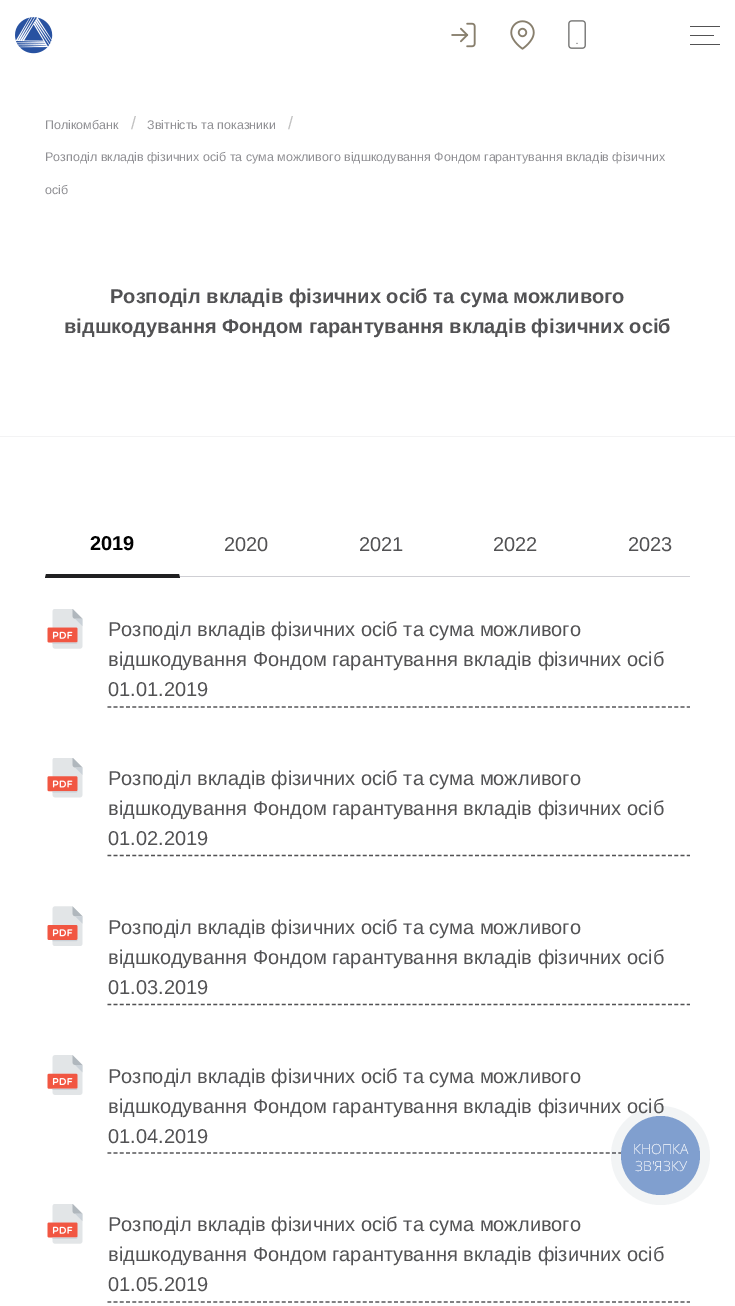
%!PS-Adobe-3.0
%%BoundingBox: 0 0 735 1306
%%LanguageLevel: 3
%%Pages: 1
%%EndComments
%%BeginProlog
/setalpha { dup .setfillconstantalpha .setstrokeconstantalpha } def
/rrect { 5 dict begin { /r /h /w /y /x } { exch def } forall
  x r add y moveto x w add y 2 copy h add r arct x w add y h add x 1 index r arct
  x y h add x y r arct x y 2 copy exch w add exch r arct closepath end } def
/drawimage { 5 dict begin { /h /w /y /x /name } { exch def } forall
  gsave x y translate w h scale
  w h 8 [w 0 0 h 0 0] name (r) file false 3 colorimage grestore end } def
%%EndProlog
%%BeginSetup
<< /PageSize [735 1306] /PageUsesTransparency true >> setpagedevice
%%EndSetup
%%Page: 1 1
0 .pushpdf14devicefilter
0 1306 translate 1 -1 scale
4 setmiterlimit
1 setgray
0 0 735 1306 rectfill
(images/1.raw) 15 17 38 37 drawimage
(images/2.raw) 451 22 25 26 drawimage
(images/3.raw) 510 20 25 30 drawimage
(images/4.raw) 568 20 18 29 drawimage
0.322 0.322 0.329 setrgbcolor
690 26 30 1 0.5 rrect fill
690 35 24 1 0.5 rrect fill
690 44 30 1 0.5 rrect fill
0.953 0.953 0.957 setrgbcolor
0 436 735 1 rectfill
0.812 0.812 0.831 setrgbcolor
45 576 645 1 rectfill
0.125 0.125 0.129 setrgbcolor
newpath 180 578 moveto 45 578 lineto 46 574 lineto 179 574 lineto closepath fill
0.322 0.322 0.329 setrgbcolor
1.2 setlinewidth
[3.75 2.48] 0 setdash
newpath 107.5 707 moveto 690 707 lineto stroke
(images/5.raw) 47 609 36 40 drawimage
newpath 107.5 855.5 moveto 690 855.5 lineto stroke
(images/6.raw) 47 758 36 40 drawimage
newpath 107.5 1004.5 moveto 690 1004.5 lineto stroke
(images/7.raw) 47 906 36 40 drawimage
newpath 107.5 1153 moveto 690 1153 lineto stroke
(images/8.raw) 47 1055 36 40 drawimage
newpath 107.5 1302 moveto 690 1302 lineto stroke
(images/5.raw) 47 1204 36 40 drawimage
0.06 setalpha
0.165 0.251 0.365 setrgbcolor
newpath 660.5 1155.5 49.5 0 360 arc closepath fill
/LiberationSans-Regular [12.5 0 0 -12.5 0 0] selectfont
1 setalpha
0.565 0.565 0.58 setrgbcolor
45 129 moveto (Полікомбанк) show
/LiberationSans-Regular [18 0 0 -18 0 0] selectfont
0.757 setgray
131 129 moveto (/) show
/LiberationSans-Regular [12.5 0 0 -12.5 0 0] selectfont
0.565 0.565 0.58 setrgbcolor
147 129 moveto (Звітність та показники) show
/LiberationSans-Regular [18 0 0 -18 0 0] selectfont
0.757 setgray
288 129 moveto (/) show
/LiberationSans-Regular [12.5 0 0 -12.5 0 0] selectfont
0.565 0.565 0.58 setrgbcolor
45 161 moveto (Розподіл вкладів фізичних осіб та сума можливого відшкодування Фондом гарантування вкладів фізичних) show
45 194 moveto (осіб) show
/LiberationSans-Bold [20 0 0 -20 0 0] selectfont
0.322 0.322 0.329 setrgbcolor
110 303 moveto (Розподіл вкладів фізичних осіб та сума можливого) show
64 333 moveto (відшкодування Фондом гарантування вкладів фізичних осіб) show
0 setgray
90 550 moveto (2019) show
/LiberationSans-Regular [20 0 0 -20 0 0] selectfont
0.322 0.322 0.329 setrgbcolor
224 551 moveto (2020) show
359 551 moveto (2021) show
493 551 moveto (2022) show
628 551 moveto (2023) show
108 636 moveto (Розподіл вкладів фізичних осіб та сума можливого) show
108 666 moveto (відшкодування Фондом гарантування вкладів фізичних осіб) show
108 696 moveto (01.01.2019) show
108 785 moveto (Розподіл вкладів фізичних осіб та сума можливого) show
108 815 moveto (відшкодування Фондом гарантування вкладів фізичних осіб) show
108 845 moveto (01.02.2019) show
108 934 moveto (Розподіл вкладів фізичних осіб та сума можливого) show
108 964 moveto (відшкодування Фондом гарантування вкладів фізичних осіб) show
108 994 moveto (01.03.2019) show
108 1083 moveto (Розподіл вкладів фізичних осіб та сума можливого) show
108 1113 moveto (відшкодування Фондом гарантування вкладів фізичних осіб) show
108 1143 moveto (01.04.2019) show
108 1231 moveto (Розподіл вкладів фізичних осіб та сума можливого) show
108 1261 moveto (відшкодування Фондом гарантування вкладів фізичних осіб) show
108 1291 moveto (01.05.2019) show
0.502 0.624 0.812 setrgbcolor
newpath 660.5 1155.5 39.5 0 360 arc closepath fill
/OpenSans-Light [14 0 0 -14 0 0] selectfont
1 setgray
633 1154 moveto (КНОПКА) show
635 1171 moveto (ЗВ'ЯЗКУ) show
.poppdf14devicefilter showpage
%%EOF
